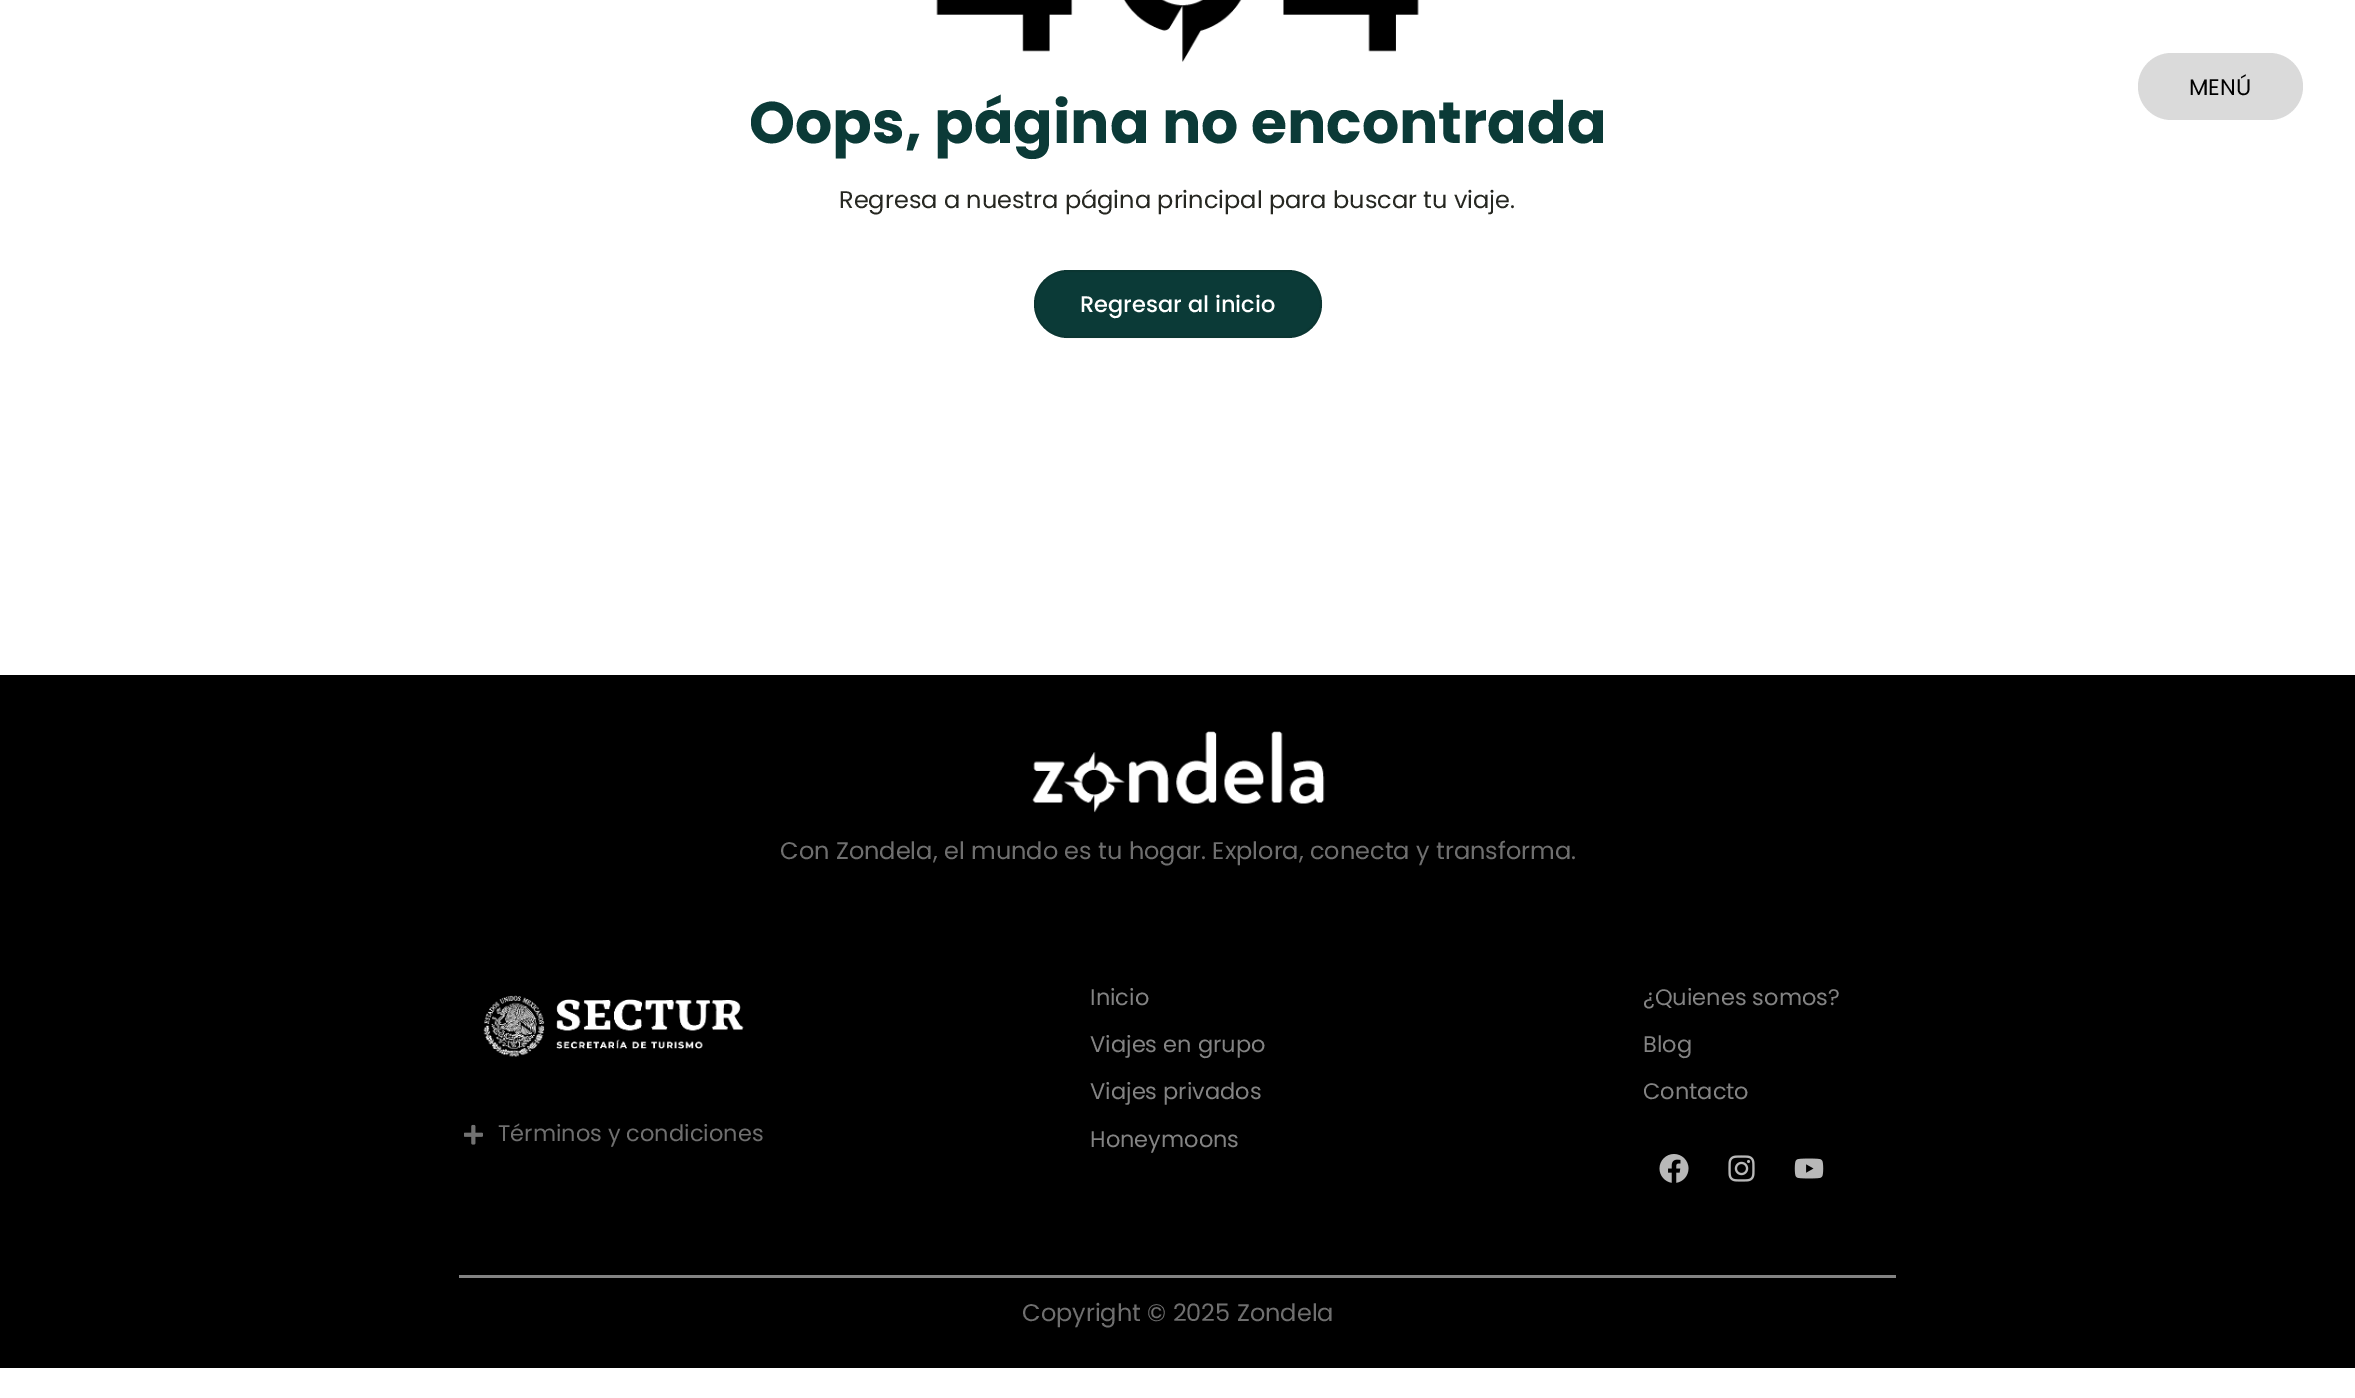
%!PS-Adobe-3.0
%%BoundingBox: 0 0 2355 1398
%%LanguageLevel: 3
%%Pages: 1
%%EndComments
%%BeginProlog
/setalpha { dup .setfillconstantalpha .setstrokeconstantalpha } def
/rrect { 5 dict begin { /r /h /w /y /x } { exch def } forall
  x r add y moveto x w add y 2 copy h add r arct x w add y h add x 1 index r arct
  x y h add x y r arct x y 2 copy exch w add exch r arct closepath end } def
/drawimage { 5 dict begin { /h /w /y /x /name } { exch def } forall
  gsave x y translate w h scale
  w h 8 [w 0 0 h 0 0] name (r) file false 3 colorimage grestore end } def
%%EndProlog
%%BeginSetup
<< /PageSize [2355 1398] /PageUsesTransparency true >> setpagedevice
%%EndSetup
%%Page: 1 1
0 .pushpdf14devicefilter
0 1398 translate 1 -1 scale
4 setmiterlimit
1 setgray
0 0 2355 1398 rectfill
0.855 setgray
2138 53 165 67 33.5 rrect fill
(images/1.raw) 936 0 483 62 drawimage
0.043 0.227 0.216 setrgbcolor
1034 270 288 68 34 rrect fill
0.09 setalpha
0.031 0.035 0.02 setrgbcolor
2 setlinewidth
1035 271 286 66 33 rrect stroke
1 setalpha
0 setgray
0 675 2355 693 rectfill
(images/2.raw) 1032 731 293 82 drawimage
(images/3.raw) 1659 1154 30 29 drawimage
(images/4.raw) 1728 1155 27 27 drawimage
(images/5.raw) 1794 1158 30 21 drawimage
(images/6.raw) 483 995 261 62 drawimage
(images/7.raw) 464 1124 19 21 drawimage
0.514 setgray
459 1275 1437 3 rectfill
/Poppins-Regular [22.5 0 0 -22.5 0 0] selectfont
0 setgray
2189 95 moveto (MENÚ) show
/Poppins-Bold [58.5 0 0 -58.5 0 0] selectfont
0.043 0.227 0.216 setrgbcolor
749 143 moveto (Oops, página no encontrada) show
/Poppins-Regular [24 0 0 -24 0 0] selectfont
0.149 0.153 0.129 setrgbcolor
839 208 moveto (Regresa a nuestra página principal para buscar tu viaje.) show
/Poppins-Medium [22.5 0 0 -22.5 0 0] selectfont
1 setgray
1080 312 moveto (Regresar al inicio) show
/Poppins-Regular [24 0 0 -24 0 0] selectfont
0.435 setgray
780 859 moveto (Con Zondela, el mundo es tu hogar. Explora, conecta y transforma.) show
/Poppins-Regular [22.5 0 0 -22.5 0 0] selectfont
0.514 setgray
1090 1005 moveto (Inicio) show
1090 1052 moveto (Viajes en grupo) show
1090 1099 moveto (Viajes privados) show
1090 1147 moveto (Honeymoons) show
1643 1005 moveto (¿Quienes somos?) show
1643 1052 moveto (Blog) show
1643 1099 moveto (Contacto) show
0.435 setgray
498 1141 moveto (Términos y condiciones) show
/Poppins-Regular [24 0 0 -24 0 0] selectfont
1022 1321 moveto (Copyright © 2025 Zondela) show
.poppdf14devicefilter showpage
%%EOF
